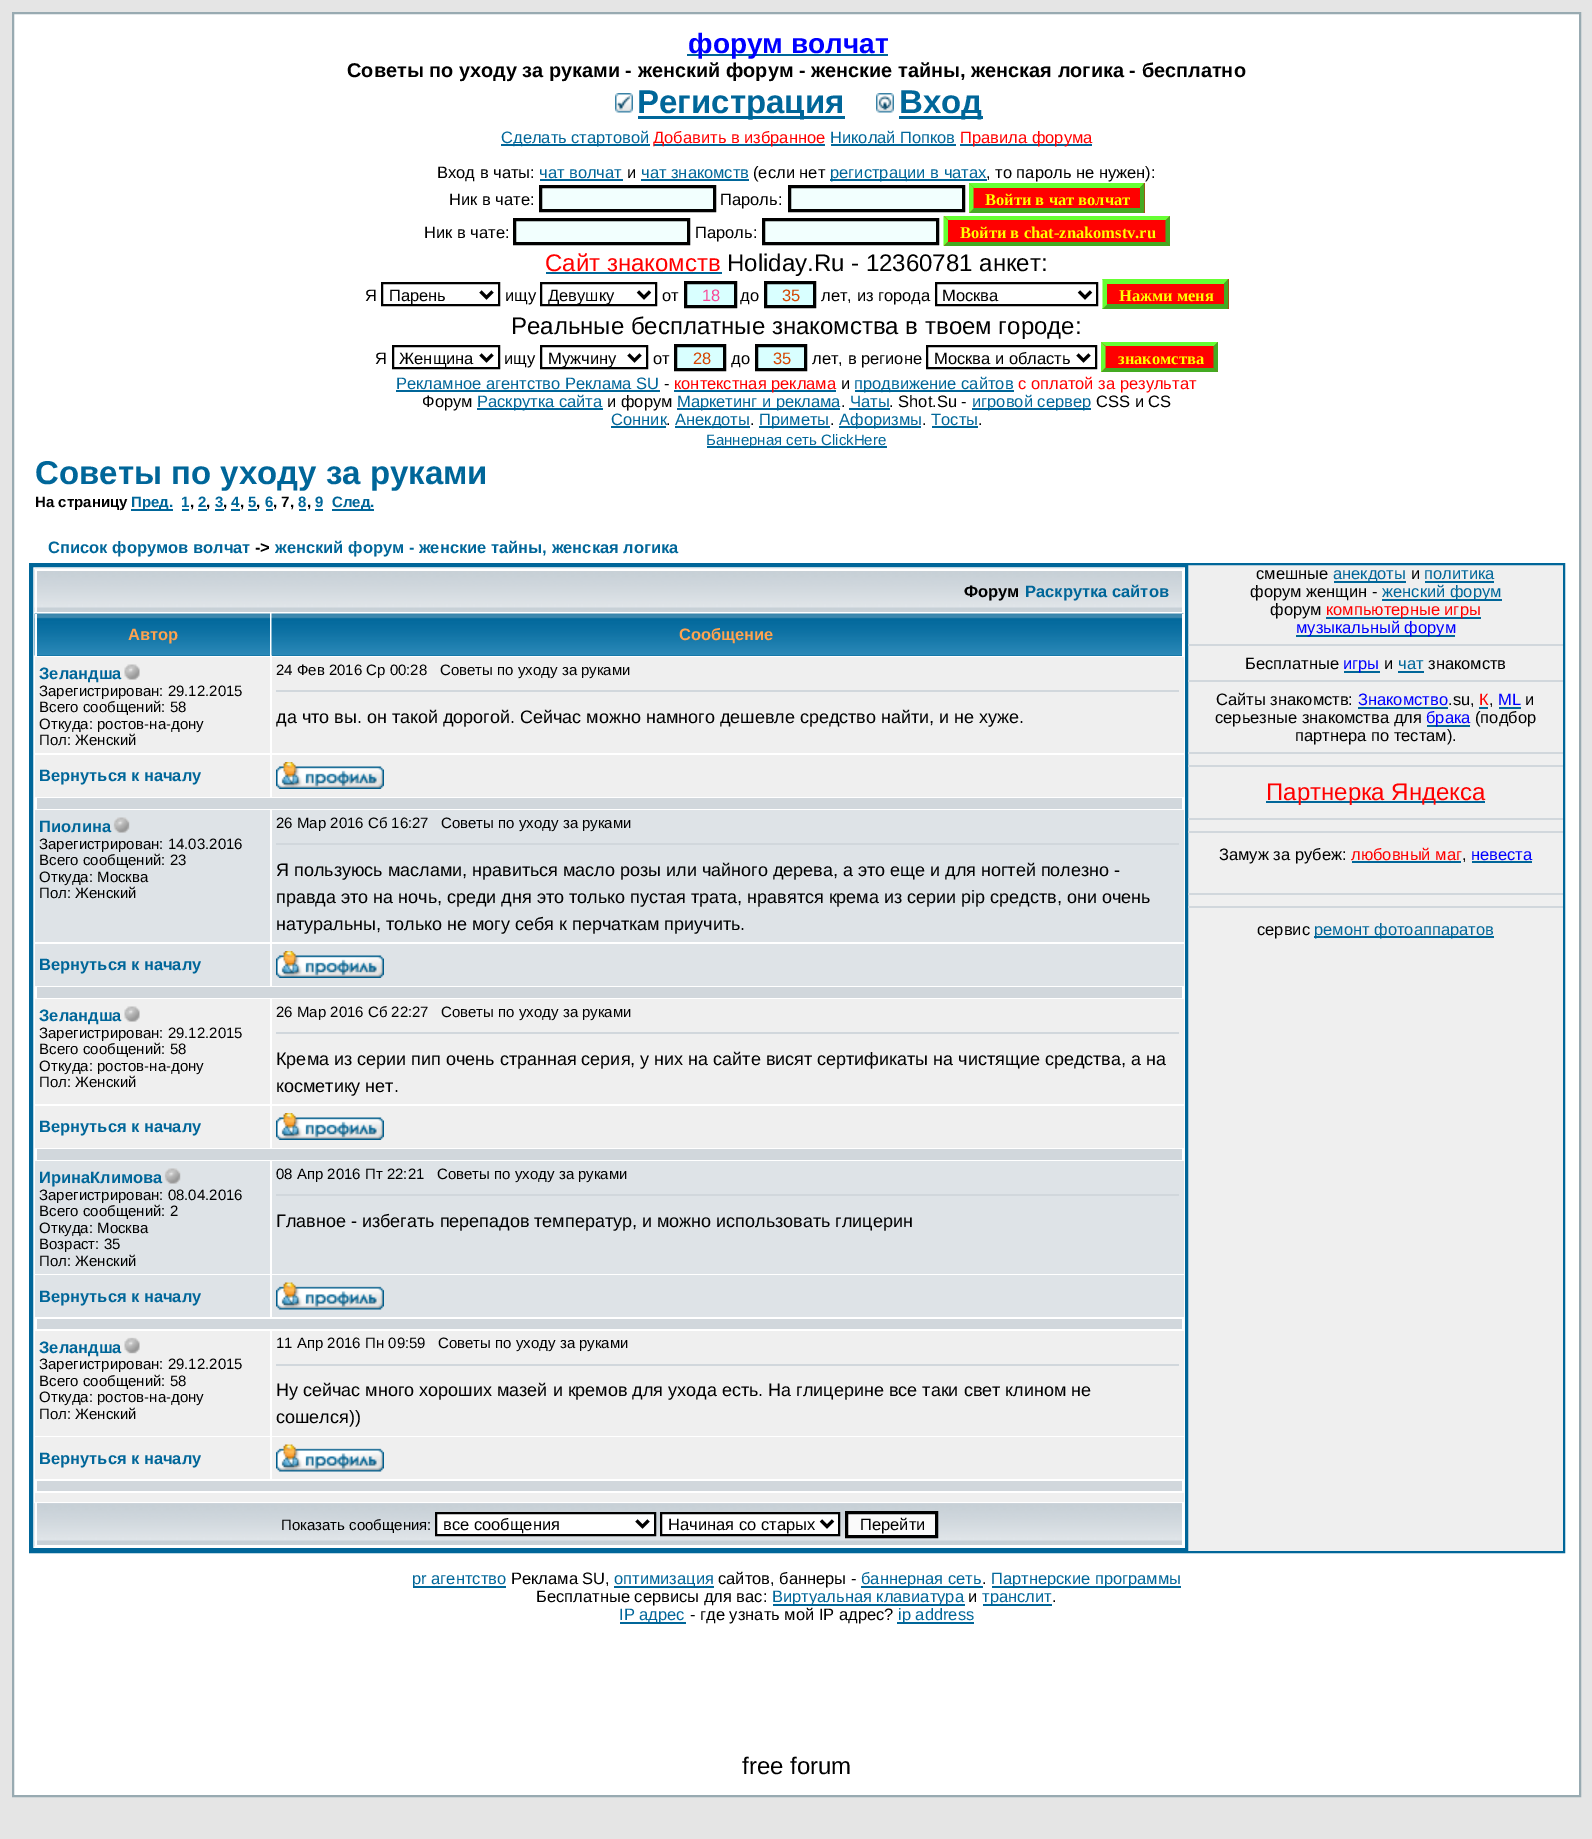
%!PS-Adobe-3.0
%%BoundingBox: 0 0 1592 1839
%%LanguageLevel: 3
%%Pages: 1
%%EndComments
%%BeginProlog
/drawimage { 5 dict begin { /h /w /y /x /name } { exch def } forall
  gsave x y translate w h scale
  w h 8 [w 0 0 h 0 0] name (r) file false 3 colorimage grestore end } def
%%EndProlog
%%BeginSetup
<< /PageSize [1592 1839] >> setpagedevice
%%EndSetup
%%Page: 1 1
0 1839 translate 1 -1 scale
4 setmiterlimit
0.898 setgray
0 0 1592 1839 rectfill
1 setgray
newpath 13 13 moveto 1580 13 lineto 1580 1796 lineto 13 1796 lineto closepath gsave fill grestore
0.596 0.667 0.694 setrgbcolor
2 setlinewidth
stroke
0 0.4 0.6 setrgbcolor
687 54 201 2 rectfill
(images/1.raw) 615 93 18 20 drawimage
638 116 207 3 rectfill
(images/2.raw) 876 93 18 20 drawimage
899 116 84 3 rectfill
501 144 149 2 rectfill
654 144 171 2 rectfill
831 144 125 2 rectfill
960 144 132 2 rectfill
540 179 83 2 rectfill
641 179 108 2 rectfill
830 179 157 2 rectfill
0.949 1 0.996 setrgbcolor
newpath 540.5 186.5 moveto 714.5 186.5 lineto 714.5 210.5 lineto 540.5 210.5 lineto closepath gsave fill grestore
0 setgray
3 setlinewidth
stroke
0.949 1 0.996 setrgbcolor
newpath 789.5 186.5 moveto 963.5 186.5 lineto 963.5 210.5 lineto 789.5 210.5 lineto closepath gsave fill grestore
0 setgray
stroke
1 0 0 setrgbcolor
969 183 176 30 rectfill
0.4 1 0.2 setrgbcolor
newpath 969 183 moveto 1144 183 lineto 1140 188 lineto 974 188 lineto closepath fill
0.267 0.667 0.133 setrgbcolor
newpath 1144.5 183 moveto 1144.5 213 lineto 1140 208.5 lineto 1140 187.5 lineto closepath fill
newpath 1144 213 moveto 969 213 lineto 974 208 lineto 1140 208 lineto closepath fill
0.4 1 0.2 setrgbcolor
newpath 969 213 moveto 969 183 lineto 973.5 187.5 lineto 973.5 208.5 lineto closepath fill
0.949 1 0.996 setrgbcolor
newpath 514.5 219.5 moveto 688.5 219.5 lineto 688.5 243.5 lineto 514.5 243.5 lineto closepath gsave fill grestore
0 setgray
stroke
0.949 1 0.996 setrgbcolor
newpath 763.5 219.5 moveto 937.5 219.5 lineto 937.5 243.5 lineto 763.5 243.5 lineto closepath gsave fill grestore
0 setgray
stroke
1 0 0 setrgbcolor
944 216 226 30 rectfill
0.4 1 0.2 setrgbcolor
newpath 944 216 moveto 1170 216 lineto 1166 220 lineto 948 220 lineto closepath fill
0.267 0.667 0.133 setrgbcolor
newpath 1170 216 moveto 1170 246 lineto 1165.5 241.5 lineto 1165.5 220.5 lineto closepath fill
newpath 1170 246 moveto 944 246 lineto 948 242 lineto 1166 242 lineto closepath fill
0.4 1 0.2 setrgbcolor
newpath 943.5 246 moveto 943.5 216 lineto 948 220.5 lineto 948 241.5 lineto closepath fill
0 0.4 0.6 setrgbcolor
546 272 176 2 rectfill
0 setgray
2 setlinewidth
382 283 117 22 rectstroke
3 setlinewidth
newpath 480.5 291.5 moveto 486.5 297.5 lineto 492.5 291.5 lineto stroke
2 setlinewidth
541 283 115 22 rectstroke
3 setlinewidth
newpath 638 291.5 moveto 644 297.5 lineto 650 291.5 lineto stroke
0.851 1 1 setrgbcolor
newpath 685.5 282.5 moveto 735.5 282.5 lineto 735.5 306.5 lineto 685.5 306.5 lineto closepath gsave fill grestore
0 setgray
stroke
0.851 1 1 setrgbcolor
newpath 765.5 282.5 moveto 814.5 282.5 lineto 814.5 306.5 lineto 765.5 306.5 lineto closepath gsave fill grestore
0 setgray
stroke
2 setlinewidth
936 283 161 22 rectstroke
3 setlinewidth
newpath 1079 291.5 moveto 1085 297.5 lineto 1091 291.5 lineto stroke
1 0 0 setrgbcolor
1103 279 126 30 rectfill
0.4 1 0.2 setrgbcolor
newpath 1102 279 moveto 1228 279 lineto 1224 284 lineto 1107 284 lineto closepath fill
0.267 0.667 0.133 setrgbcolor
newpath 1228.5 279 moveto 1228.5 309 lineto 1224 304.5 lineto 1224 283.5 lineto closepath fill
newpath 1228 309 moveto 1102 309 lineto 1107 304 lineto 1224 304 lineto closepath fill
0.4 1 0.2 setrgbcolor
newpath 1102.5 309 moveto 1102.5 279 lineto 1107 283.5 lineto 1107 304.5 lineto closepath fill
0 setgray
2 setlinewidth
393 346 106 22 rectstroke
3 setlinewidth
newpath 480.5 354.5 moveto 486.5 360.5 lineto 492.5 354.5 lineto stroke
2 setlinewidth
541 346 106 22 rectstroke
3 setlinewidth
newpath 628.5 354.5 moveto 634.5 360.5 lineto 640.5 354.5 lineto stroke
0.851 1 1 setrgbcolor
newpath 675.5 345.5 moveto 724.5 345.5 lineto 724.5 369.5 lineto 675.5 369.5 lineto closepath gsave fill grestore
0 setgray
stroke
0.851 1 1 setrgbcolor
newpath 756.5 345.5 moveto 805.5 345.5 lineto 805.5 369.5 lineto 756.5 369.5 lineto closepath gsave fill grestore
0 setgray
stroke
2 setlinewidth
927 346 169 22 rectstroke
3 setlinewidth
newpath 1077.5 354.5 moveto 1083.5 360.5 lineto 1089.5 354.5 lineto stroke
1 0 0 setrgbcolor
1101 342 117 30 rectfill
0.4 1 0.2 setrgbcolor
newpath 1101 342 moveto 1218 342 lineto 1214 346 lineto 1106 346 lineto closepath fill
0.267 0.667 0.133 setrgbcolor
newpath 1218 342 moveto 1218 372 lineto 1213.5 367.5 lineto 1213.5 346.5 lineto closepath fill
newpath 1218 372 moveto 1101 372 lineto 1106 368 lineto 1214 368 lineto closepath fill
0.4 1 0.2 setrgbcolor
newpath 1101 372 moveto 1101 342 lineto 1105.5 346.5 lineto 1105.5 367.5 lineto closepath fill
0 0.4 0.6 setrgbcolor
396 390 264 2 rectfill
674 390 162 2 rectfill
855 390 159 2 rectfill
477 408 126 2 rectfill
677 408 163 2 rectfill
849 408 41 2 rectfill
972 408 119 2 rectfill
611 426 55 2 rectfill
675 426 75 2 rectfill
759 426 71 2 rectfill
839 426 82 2 rectfill
932 426 46 2 rectfill
707 446 180 2 rectfill
131 509 42 2 rectfill
182 509 7 2 rectfill
198 509 9 2 rectfill
215 509 9 2 rectfill
231 509 9 2 rectfill
248 509 9 2 rectfill
266 509 7 2 rectfill
299 509 7 2 rectfill
315 509 8 2 rectfill
332 509 42 2 rectfill
0.937 setgray
1188 565 375 986 rectfill
0 0.4 0.6 setrgbcolor
2 setlinewidth
30 564 1534 988 rectstroke
3 setlinewidth
31.5 565.5 1155 984 rectstroke
(images/3.raw) 34 568 1150 44 drawimage
1 setgray
35 569 1149 2 rectfill
1182 569 2 43 rectfill
35 569 2 43 rectfill
0 0.4 0.6 setrgbcolor
37 655 233 1 rectfill
(images/4.raw) 34 613 236 43 drawimage
1 setgray
35 614 2 42 rectfill
0 0.4 0.6 setrgbcolor
272 655 910 1 rectfill
(images/5.raw) 271 613 913 43 drawimage
1 setgray
1182 614 2 42 rectfill
0.937 setgray
35 657 235 96 rectfill
(images/6.raw) 124 664 16 16 drawimage
272 657 912 96 rectfill
0.82 0.843 0.863 setrgbcolor
276 690 903 2 rectfill
0.937 setgray
35 755 235 42 rectfill
272 755 912 42 rectfill
(images/7.raw) 276 762 108 27 drawimage
0.82 0.843 0.863 setrgbcolor
37 798 1145 11 rectfill
0.871 0.89 0.906 setrgbcolor
35 810 235 132 rectfill
(images/8.raw) 113 817 17 16 drawimage
272 810 912 132 rectfill
0.82 0.843 0.863 setrgbcolor
276 843 903 2 rectfill
0.871 0.89 0.906 setrgbcolor
35 944 235 42 rectfill
272 944 912 42 rectfill
(images/9.raw) 276 951 108 27 drawimage
0.82 0.843 0.863 setrgbcolor
37 987 1145 11 rectfill
0.937 setgray
35 999 235 105 rectfill
(images/6.raw) 124 1006 16 16 drawimage
272 999 912 105 rectfill
0.82 0.843 0.863 setrgbcolor
276 1032 903 2 rectfill
0.937 setgray
35 1106 235 42 rectfill
272 1106 912 42 rectfill
(images/7.raw) 276 1113 108 27 drawimage
0.82 0.843 0.863 setrgbcolor
37 1149 1145 11 rectfill
0.871 0.89 0.906 setrgbcolor
35 1161 235 113 rectfill
(images/8.raw) 164 1168 17 16 drawimage
272 1161 912 113 rectfill
0.82 0.843 0.863 setrgbcolor
276 1194 903 2 rectfill
0.871 0.89 0.906 setrgbcolor
35 1275 235 42 rectfill
272 1275 912 42 rectfill
(images/10.raw) 276 1282 108 28 drawimage
0.82 0.843 0.863 setrgbcolor
37 1319 1145 10 rectfill
0.937 setgray
35 1331 235 105 rectfill
(images/11.raw) 124 1337 16 17 drawimage
272 1331 912 105 rectfill
0.82 0.843 0.863 setrgbcolor
276 1364 903 2 rectfill
0.937 setgray
35 1437 235 42 rectfill
272 1437 912 42 rectfill
(images/12.raw) 276 1444 108 28 drawimage
0.82 0.843 0.863 setrgbcolor
37 1481 1145 10 rectfill
0.937 setgray
35 1493 1149 9 rectfill
(images/13.raw) 34 1503 1148 44 drawimage
1 setgray
35 1545 1149 2 rectfill
35 1503 2 44 rectfill
newpath 436 1513 moveto 655 1513 lineto 655 1535 lineto 436 1535 lineto closepath gsave fill grestore
0 setgray
2 setlinewidth
stroke
3 setlinewidth
newpath 636.5 1520.5 moveto 642.5 1526.5 lineto 648.5 1520.5 lineto stroke
1 setgray
newpath 661 1513 moveto 839 1513 lineto 839 1535 lineto 661 1535 lineto closepath gsave fill grestore
0 setgray
2 setlinewidth
stroke
3 setlinewidth
newpath 821 1520.5 moveto 827 1526.5 lineto 833 1520.5 lineto stroke
0.98 setgray
newpath 846.5 1512.5 moveto 936.5 1512.5 lineto 936.5 1536.5 lineto 846.5 1536.5 lineto closepath gsave fill grestore
0 setgray
stroke
0 0.4 0.6 setrgbcolor
1334 581 72 2 rectfill
1425 581 69 2 rectfill
1382 599 120 2 rectfill
1326 617 155 2 rectfill
1296 635 159 2 rectfill
0.82 0.843 0.863 setrgbcolor
1188 644 375 2 rectfill
0 0.4 0.6 setrgbcolor
1344 671 36 2 rectfill
1398 671 26 2 rectfill
0.82 0.843 0.863 setrgbcolor
1188 680 375 2 rectfill
0 0.4 0.6 setrgbcolor
1358 707 90 2 rectfill
1479 707 9 2 rectfill
1499 707 22 2 rectfill
1427 725 43 2 rectfill
0.82 0.843 0.863 setrgbcolor
1188 752 375 2 rectfill
1188 765 375 2 rectfill
0 0.4 0.6 setrgbcolor
1266 801 219 2 rectfill
0.82 0.843 0.863 setrgbcolor
1188 818 375 2 rectfill
1188 831 375 2 rectfill
0 0.4 0.6 setrgbcolor
1352 861 109 2 rectfill
1472 861 60 2 rectfill
0.82 0.843 0.863 setrgbcolor
1188 893 375 2 rectfill
1188 906 375 2 rectfill
0 0.4 0.6 setrgbcolor
1314 936 180 2 rectfill
413 1586 93 2 rectfill
614 1586 100 2 rectfill
861 1586 122 2 rectfill
992 1586 189 2 rectfill
773 1604 192 2 rectfill
983 1604 69 2 rectfill
620 1622 66 2 rectfill
897 1622 77 2 rectfill
/LiberationSans-Bold [28 0 0 -28 0 0] selectfont
0 0 1 setrgbcolor
688 53 moveto (форум волчат) show
/LiberationSans-Bold [19.9 0 0 -19.9 0 0] selectfont
0 setgray
347 77 moveto (Советы по уходу за руками - женский форум - женские тайны, женская логика - бесплатно) show
/LiberationSans-Bold [33 0 0 -33 0 0] selectfont
0 0.4 0.6 setrgbcolor
637 113 moveto (Регистрация) show
899 113 moveto (Вход) show
/LiberationSans-Regular [16.5 0 0 -16.5 0 0] selectfont
501 143 moveto (Сделать стартовой) show
1 0 0 setrgbcolor
653 143 moveto (Добавить в избранное) show
0 0.4 0.6 setrgbcolor
830 143 moveto (Николай Попков) show
1 0 0 setrgbcolor
960 143 moveto (Правила форума) show
0 setgray
437 178 moveto (Вход в чаты:) show
0 0.4 0.6 setrgbcolor
539 178 moveto (чат волчат) show
0 setgray
627 178 moveto (и) show
0 0.4 0.6 setrgbcolor
641 178 moveto (чат знакомств) show
0 setgray
753 178 moveto (\(если нет) show
0 0.4 0.6 setrgbcolor
830 178 moveto (регистрации в чатах) show
0 setgray
986 178 moveto (, то пароль не нужен\):) show
449 205 moveto (Ник в чате:) show
720 205 moveto (Пароль:) show
/LiberationSerif-Bold [16.5 0 0 -16.5 0 0] selectfont
1 1 0 setrgbcolor
985 205 moveto (Войти в чат волчат) show
/LiberationSans-Regular [16.5 0 0 -16.5 0 0] selectfont
0 setgray
424 238 moveto (Ник в чате:) show
695 238 moveto (Пароль:) show
/LiberationSerif-Bold [16.5 0 0 -16.5 0 0] selectfont
1 1 0 setrgbcolor
960 238 moveto (Войти в chat-znakomstv.ru) show
/LiberationSans-Regular [24 0 0 -24 0 0] selectfont
1 0 0 setrgbcolor
545 271 moveto (Cайт знакомств) show
0 setgray
727 271 moveto (Holiday.Ru - 12360781 анкет:) show
/LiberationSans-Regular [16.5 0 0 -16.5 0 0] selectfont
365 301 moveto (Я) show
389 301 moveto (Парень) show
505 301 moveto (ищу) show
548 301 moveto (Девушку) show
662 301 moveto (от) show
0.976 0.275 0.592 setrgbcolor
702 301 moveto (18) show
0 setgray
740 301 moveto (до) show
0.835 0.271 0 setrgbcolor
782 301 moveto (35) show
0 setgray
821 301 moveto (лет, из города) show
942 301 moveto (Москва) show
/LiberationSerif-Bold [16.5 0 0 -16.5 0 0] selectfont
1 1 0 setrgbcolor
1119 301 moveto (Нажми меня) show
/LiberationSans-Regular [24 0 0 -24 0 0] selectfont
0 setgray
511 334 moveto (Реальные бесплатные знакомства в твоем городе:) show
/LiberationSans-Regular [16.5 0 0 -16.5 0 0] selectfont
375 364 moveto (Я) show
399 364 moveto (Женщина) show
504 364 moveto (ищу) show
548 364 moveto (Мужчину) show
653 364 moveto (от) show
0.835 0.271 0 setrgbcolor
693 364 moveto (28) show
0 setgray
731 364 moveto (до) show
0.835 0.271 0 setrgbcolor
773 364 moveto (35) show
0 setgray
812 364 moveto (лет, в регионе) show
934 364 moveto (Москва и область) show
/LiberationSerif-Bold [16.5 0 0 -16.5 0 0] selectfont
1 1 0 setrgbcolor
1118 364 moveto (знакомства) show
/LiberationSans-Regular [16.5 0 0 -16.5 0 0] selectfont
0 0.4 0.6 setrgbcolor
396 389 moveto (Рекламное агентство Реклама SU) show
0 setgray
664 389 moveto (-) show
1 0 0 setrgbcolor
674 389 moveto (контекстная реклама) show
0 setgray
841 389 moveto (и) show
0 0.4 0.6 setrgbcolor
854 389 moveto (продвижение сайтов) show
1 0 0 setrgbcolor
1018 389 moveto (с оплатой за результат) show
0 setgray
422 407 moveto (Форум) show
0 0.4 0.6 setrgbcolor
477 407 moveto (Раскрутка сайта) show
0 setgray
607 407 moveto (и форум) show
0 0.4 0.6 setrgbcolor
677 407 moveto (Маркетинг и реклама) show
0 setgray
841 407 moveto (.) show
0 0.4 0.6 setrgbcolor
850 407 moveto (Чаты) show
0 setgray
889 407 moveto (. Shot.Su -) show
0 0.4 0.6 setrgbcolor
972 407 moveto (игровой сервер) show
0 setgray
1096 407 moveto (CSS и CS) show
0 0.4 0.6 setrgbcolor
611 425 moveto (Сонник) show
0 setgray
666 425 moveto (.) show
0 0.4 0.6 setrgbcolor
675 425 moveto (Анекдоты) show
0 setgray
750 425 moveto (.) show
0 0.4 0.6 setrgbcolor
759 425 moveto (Приметы) show
0 setgray
830 425 moveto (.) show
0 0.4 0.6 setrgbcolor
839 425 moveto (Aфоризмы) show
0 setgray
922 425 moveto (.) show
0 0.4 0.6 setrgbcolor
931 425 moveto (Тосты) show
0 setgray
978 425 moveto (.) show
/LiberationSans-Regular [15 0 0 -15 0 0] selectfont
0 0.4 0.6 setrgbcolor
706 445 moveto (Баннерная сеть ClickHere) show
/LiberationSans-Bold [33 0 0 -33 0 0] selectfont
35 484 moveto (Советы по уходу за руками) show
/LiberationSans-Bold [15 0 0 -15 0 0] selectfont
0 setgray
35 507 moveto (На страницу) show
0 0.4 0.6 setrgbcolor
131 507 moveto (Пред.) show
181 507 moveto (1) show
0 setgray
190 507 moveto (,) show
0 0.4 0.6 setrgbcolor
198 507 moveto (2) show
0 setgray
206 507 moveto (,) show
0 0.4 0.6 setrgbcolor
215 507 moveto (3) show
0 setgray
223 507 moveto (,) show
0 0.4 0.6 setrgbcolor
231 507 moveto (4) show
0 setgray
240 507 moveto (,) show
0 0.4 0.6 setrgbcolor
248 507 moveto (5) show
0 setgray
256 507 moveto (,) show
0 0.4 0.6 setrgbcolor
265 507 moveto (6) show
0 setgray
273 507 moveto (, 7,) show
0 0.4 0.6 setrgbcolor
298 507 moveto (8) show
0 setgray
307 507 moveto (,) show
0 0.4 0.6 setrgbcolor
315 507 moveto (9) show
332 507 moveto (След.) show
/LiberationSans-Bold [16.5 0 0 -16.5 0 0] selectfont
48 553 moveto (Список форумов волчат) show
0 setgray
255 553 moveto (->) show
0 0.4 0.6 setrgbcolor
275 553 moveto (женский форум - женские тайны, женская логика) show
0 setgray
964 597 moveto (Форум) show
0 0.4 0.6 setrgbcolor
1025 597 moveto (Раскрутка сайтов) show
1 0.639 0.31 setrgbcolor
128 640 moveto (Автор) show
679 640 moveto (Сообщение) show
0 0.4 0.6 setrgbcolor
39 679 moveto (Зеландша) show
/LiberationSans-Regular [15 0 0 -15 0 0] selectfont
0 setgray
39 696 moveto (Зарегистрирован: 29.12.2015) show
39 712 moveto (Всего сообщений: 58) show
39 729 moveto (Откуда: ростов-на-дону) show
39 745 moveto (Пол: Женский) show
276 675 moveto (24 Фев 2016 Ср 00:28) show
440 675 moveto (Советы по уходу за руками) show
/LiberationSans-Regular [18 0 0 -18 0 0] selectfont
276 723 moveto (да что вы. он такой дорогой. Сейчас можно намного дешевле средство найти, и не хуже.) show
/LiberationSans-Bold [16.5 0 0 -16.5 0 0] selectfont
0 0.4 0.6 setrgbcolor
39 781 moveto (Вернуться к началу) show
39 832 moveto (Пиолина) show
/LiberationSans-Regular [15 0 0 -15 0 0] selectfont
0 setgray
39 849 moveto (Зарегистрирован: 14.03.2016) show
39 865 moveto (Всего сообщений: 23) show
39 882 moveto (Откуда: Москва) show
39 898 moveto (Пол: Женский) show
276 828 moveto (26 Мар 2016 Сб 16:27) show
441 828 moveto (Советы по уходу за руками) show
/LiberationSans-Regular [18 0 0 -18 0 0] selectfont
276 876 moveto (Я пользуюсь маслами, нравиться масло розы или чайного дерева, а это еще и для ногтей полезно -) show
276 903 moveto (правда это на ночь, среди дня это только пустая трата, нравятся крема из серии pip средств, они очень) show
276 930 moveto (натуральны, только не могу себя к перчаткам приучить.) show
/LiberationSans-Bold [16.5 0 0 -16.5 0 0] selectfont
0 0.4 0.6 setrgbcolor
39 970 moveto (Вернуться к началу) show
39 1021 moveto (Зеландша) show
/LiberationSans-Regular [15 0 0 -15 0 0] selectfont
0 setgray
39 1038 moveto (Зарегистрирован: 29.12.2015) show
39 1054 moveto (Всего сообщений: 58) show
39 1071 moveto (Откуда: ростов-на-дону) show
39 1087 moveto (Пол: Женский) show
276 1017 moveto (26 Мар 2016 Сб 22:27) show
441 1017 moveto (Советы по уходу за руками) show
/LiberationSans-Regular [18 0 0 -18 0 0] selectfont
276 1065 moveto (Крема из серии пип очень странная серия, у них на сайте висят сертификаты на чистящие средства, а на) show
276 1092 moveto (косметику нет.) show
/LiberationSans-Bold [16.5 0 0 -16.5 0 0] selectfont
0 0.4 0.6 setrgbcolor
39 1132 moveto (Вернуться к началу) show
39 1183 moveto (ИринаКлимова) show
/LiberationSans-Regular [15 0 0 -15 0 0] selectfont
0 setgray
39 1200 moveto (Зарегистрирован: 08.04.2016) show
39 1216 moveto (Всего сообщений: 2) show
39 1233 moveto (Откуда: Москва) show
39 1249 moveto (Возраст: 35) show
39 1266 moveto (Пол: Женский) show
276 1179 moveto (08 Апр 2016 Пт 22:21) show
437 1179 moveto (Советы по уходу за руками) show
/LiberationSans-Regular [18 0 0 -18 0 0] selectfont
276 1227 moveto (Главное - избегать перепадов температур, и можно использовать глицерин) show
/LiberationSans-Bold [16.5 0 0 -16.5 0 0] selectfont
0 0.4 0.6 setrgbcolor
39 1302 moveto (Вернуться к началу) show
39 1353 moveto (Зеландша) show
/LiberationSans-Regular [15 0 0 -15 0 0] selectfont
0 setgray
39 1369 moveto (Зарегистрирован: 29.12.2015) show
39 1386 moveto (Всего сообщений: 58) show
39 1402 moveto (Откуда: ростов-на-дону) show
39 1419 moveto (Пол: Женский) show
276 1348 moveto (11 Апр 2016 Пн 09:59) show
438 1348 moveto (Советы по уходу за руками) show
/LiberationSans-Regular [18 0 0 -18 0 0] selectfont
276 1396 moveto (Ну сейчас много хороших мазей и кремов для ухода есть. На глицерине все таки свет клином не) show
276 1423 moveto (сошелся\)\)) show
/LiberationSans-Bold [16.5 0 0 -16.5 0 0] selectfont
0 0.4 0.6 setrgbcolor
39 1464 moveto (Вернуться к началу) show
/LiberationSans-Regular [15 0 0 -15 0 0] selectfont
0 setgray
281 1530 moveto (Показать сообщения:) show
/LiberationSans-Regular [16.5 0 0 -16.5 0 0] selectfont
443 1530 moveto (все сообщения) show
668 1530 moveto (Начиная со старых) show
860 1530 moveto (Перейти) show
1256 579 moveto (смешные) show
0 0.4 0.6 setrgbcolor
1333 579 moveto (анекдоты) show
0 setgray
1411 579 moveto (и) show
0 0.4 0.6 setrgbcolor
1424 579 moveto (политика) show
0 setgray
1250 597 moveto (форум женщин -) show
0 0.4 0.6 setrgbcolor
1382 597 moveto (женский форум) show
0 setgray
1270 615 moveto (форум) show
1 0 0 setrgbcolor
1326 615 moveto (компьютерные игры) show
0 0 1 setrgbcolor
1296 633 moveto (музыкальный форум) show
0 setgray
1245 669 moveto (Бесплатные) show
0 0 1 setrgbcolor
1343 669 moveto (игры) show
0 setgray
1384 669 moveto (и) show
0 0.4 0.6 setrgbcolor
1398 669 moveto (чат) show
0 setgray
1428 669 moveto (знакомств) show
1216 705 moveto (Сайты знакомств:) show
0 0 1 setrgbcolor
1358 705 moveto (Знакомство) show
0 setgray
1448 705 moveto (.su,) show
1 0 0 setrgbcolor
1479 705 moveto (К) show
0 0 1 setrgbcolor
1498 705 moveto (ML) show
0 setgray
1525 705 moveto (и) show
1489 705 moveto (,) show
1215 723 moveto (серьезные знакомства для) show
0 0 1 setrgbcolor
1426 723 moveto (брака) show
0 setgray
1475 723 moveto (\(подбор) show
1295 741 moveto (партнера по тестам\).) show
/LiberationSans-Regular [24 0 0 -24 0 0] selectfont
1 0 0 setrgbcolor
1266 800 moveto (Партнерка Яндекса) show
/LiberationSans-Regular [16.5 0 0 -16.5 0 0] selectfont
0 setgray
1219 860 moveto (Замуж за рубеж:) show
1 0 0 setrgbcolor
1351 860 moveto (любовный маг) show
0 setgray
1462 860 moveto (,) show
0 0 1 setrgbcolor
1471 860 moveto (невеста) show
0 setgray
1257 935 moveto (сервис) show
0 0.4 0.6 setrgbcolor
1314 935 moveto (ремонт фотоаппаратов) show
412 1584 moveto (pr агентство) show
0 setgray
511 1584 moveto (Реклама SU,) show
0 0.4 0.6 setrgbcolor
614 1584 moveto (оптимизация) show
0 setgray
718 1584 moveto (сайтов, баннеры -) show
0 0.4 0.6 setrgbcolor
861 1584 moveto (баннерная сеть) show
0 setgray
982 1584 moveto (.) show
0 0.4 0.6 setrgbcolor
991 1584 moveto (Партнерские программы) show
0 setgray
536 1602 moveto (Бесплатные сервисы для вас:) show
0 0.4 0.6 setrgbcolor
772 1602 moveto (Виртуальная клавиатура) show
0 setgray
968 1602 moveto (и) show
0 0.4 0.6 setrgbcolor
982 1602 moveto (транслит) show
0 setgray
1052 1602 moveto (.) show
0 0.4 0.6 setrgbcolor
619 1620 moveto (IP адрес) show
0 setgray
690 1620 moveto (- где узнать мой IP адрес?) show
0 0.4 0.6 setrgbcolor
898 1620 moveto (ip address) show
/LiberationSans-Regular [24 0 0 -24 0 0] selectfont
0 setgray
742 1774 moveto (free forum) show
showpage
%%EOF
